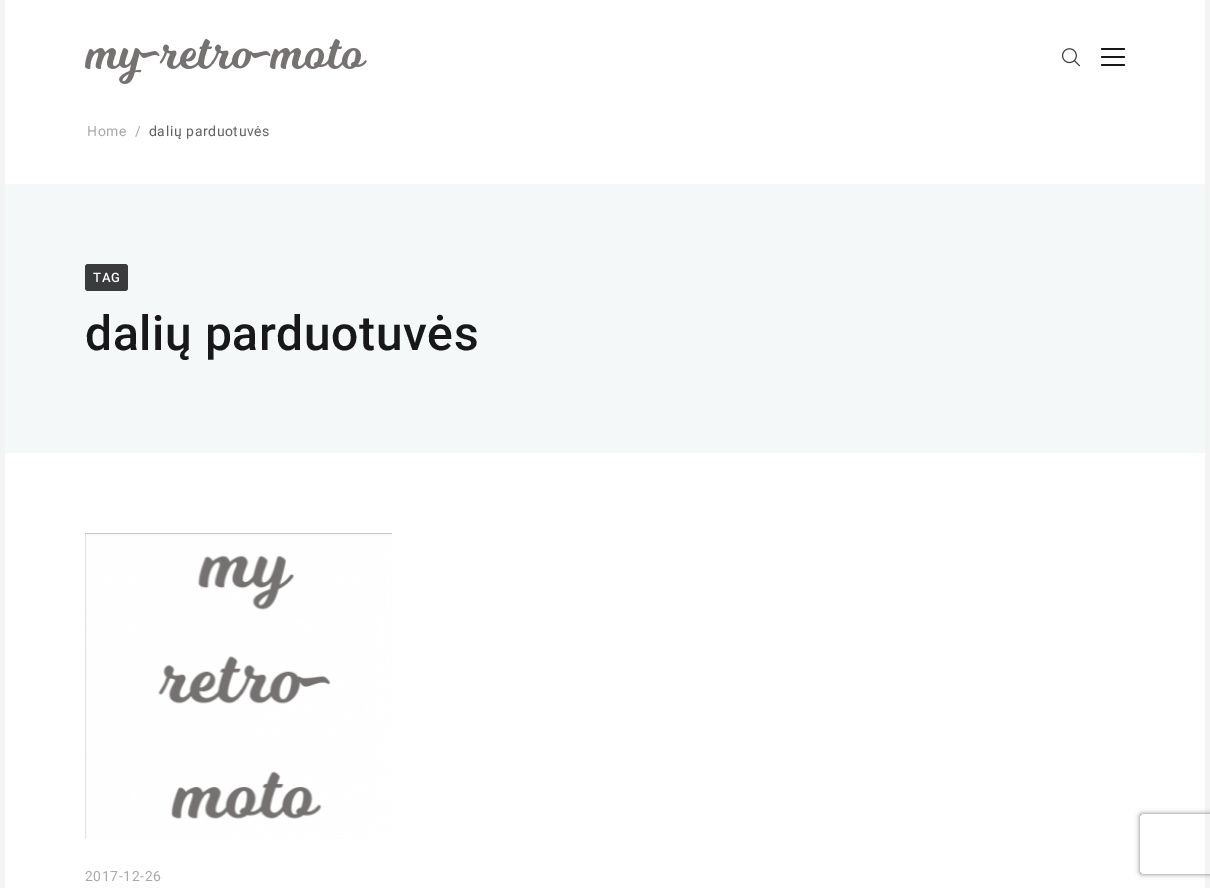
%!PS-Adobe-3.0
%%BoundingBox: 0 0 1210 888
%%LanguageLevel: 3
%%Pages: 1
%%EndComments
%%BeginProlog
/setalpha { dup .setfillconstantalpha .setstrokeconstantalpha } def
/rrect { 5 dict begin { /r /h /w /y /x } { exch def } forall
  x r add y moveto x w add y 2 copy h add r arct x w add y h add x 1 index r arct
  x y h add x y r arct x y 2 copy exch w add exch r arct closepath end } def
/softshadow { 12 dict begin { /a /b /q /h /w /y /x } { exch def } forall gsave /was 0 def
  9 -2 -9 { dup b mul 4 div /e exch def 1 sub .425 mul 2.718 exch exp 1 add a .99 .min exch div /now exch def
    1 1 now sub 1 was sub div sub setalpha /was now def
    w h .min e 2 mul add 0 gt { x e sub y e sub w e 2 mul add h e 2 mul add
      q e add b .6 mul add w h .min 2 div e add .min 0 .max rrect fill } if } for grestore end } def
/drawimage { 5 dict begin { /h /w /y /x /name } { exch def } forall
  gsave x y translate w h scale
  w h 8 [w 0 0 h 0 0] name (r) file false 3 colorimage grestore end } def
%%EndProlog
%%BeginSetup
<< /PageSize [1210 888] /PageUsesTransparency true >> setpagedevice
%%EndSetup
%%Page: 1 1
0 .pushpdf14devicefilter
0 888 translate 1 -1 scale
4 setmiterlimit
0.957 setgray
0 0 1210 888 rectfill
1 setgray
5 0 1200 888 rectfill
(images/1.raw) 85 39 282 45 drawimage
(images/2.raw) 1061 48 19 19 drawimage
0.094 setgray
1101 48 24 2 1 rrect fill
1101 56 24 2 1 rrect fill
1101 64 24 2 1 rrect fill
0.957 0.973 0.976 setrgbcolor
5 184 1200 269 rectfill
0.227 0.231 0.235 setrgbcolor
85 264 43 27 3 rrect fill
0.8 setgray
85 533 307 306 rectfill
(images/3.raw) 85 534 307 305 drawimage
gsave
newpath 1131 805 moveto 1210 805 lineto 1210 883 lineto 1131 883 lineto closepath 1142 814 moveto 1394 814 lineto 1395 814 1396 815 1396 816 curveto 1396 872 lineto 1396 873 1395 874 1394 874 curveto 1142 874 lineto 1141 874 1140 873 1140 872 curveto 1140 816 lineto 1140 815 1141 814 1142 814 curveto closepath eoclip newpath
0.502 setgray
1140 814 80 60 2 2.5 1 softshadow
grestore
/Roboto-Regular [14 0 0 -14 0 0] selectfont
0.659 setgray
87 136 moveto 0.6 0 (Home) ashow
135 136 moveto 0.6 0 (/) ashow
0.38 setgray
149 136 moveto 0.6 0 (dalių parduotuvės) ashow
/Roboto-Medium [13 0 0 -13 0 0] selectfont
1 setgray
93 282 moveto 0.6 0 (TAG) ashow
/Roboto-Medium [48 0 0 -48 0 0] selectfont
0.094 setgray
85 350 moveto 0.6 0 (dalių parduotuvės) ashow
/Roboto-Regular [14 0 0 -14 0 0] selectfont
0.659 setgray
85 881 moveto 0.6 0 (2017-12-26) ashow
.poppdf14devicefilter showpage
%%EOF
